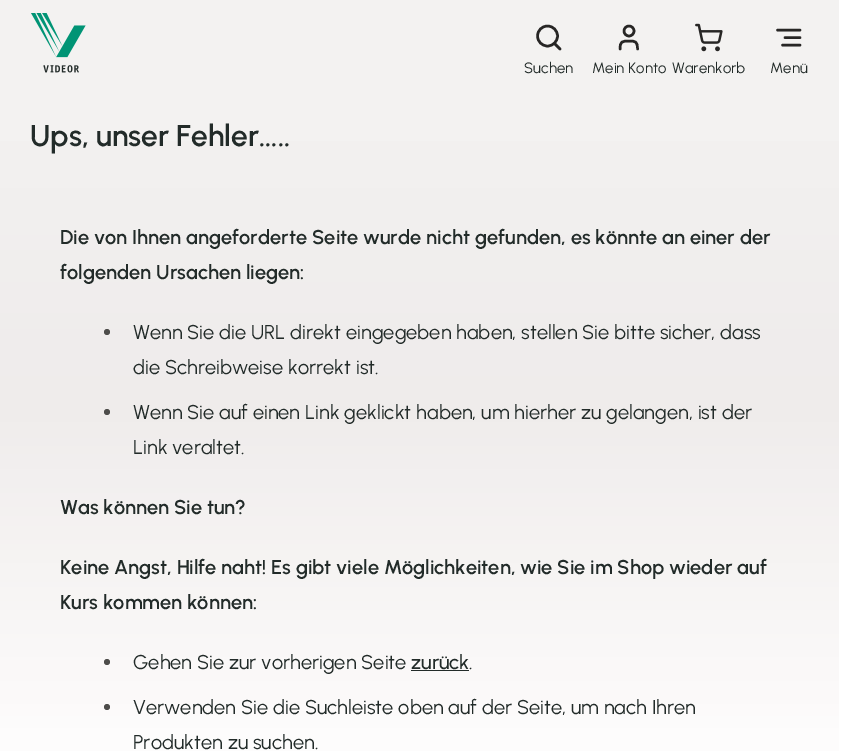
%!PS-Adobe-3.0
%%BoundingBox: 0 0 857 751
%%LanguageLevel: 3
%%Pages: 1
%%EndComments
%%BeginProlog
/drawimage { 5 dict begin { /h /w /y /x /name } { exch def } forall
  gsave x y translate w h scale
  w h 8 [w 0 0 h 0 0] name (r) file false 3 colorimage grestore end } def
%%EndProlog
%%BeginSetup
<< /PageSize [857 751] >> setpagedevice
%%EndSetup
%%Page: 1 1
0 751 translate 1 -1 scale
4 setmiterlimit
1 setgray
0 0 857 751 rectfill
gsave newpath 0 0 moveto 839 0 lineto 839 751 lineto 0 751 lineto closepath clip newpath
<< /ShadingType 2 /ColorSpace /DeviceRGB /Coords [429 0 429 751] /Extend [true true] /Function << /FunctionType 3 /Domain [0 1] /Functions [<< /FunctionType 2 /Domain [0 1] /C0 [0.953 0.949 0.945] /C1 [0.953 0.949 0.945] /N 1 >> << /FunctionType 2 /Domain [0 1] /C0 [0.953 0.949 0.945] /C1 [0.937 0.925 0.922] /N 1 >> << /FunctionType 2 /Domain [0 1] /C0 [0.937 0.925 0.922] /C1 [0.992 0.988 0.988] /N 1 >> << /FunctionType 2 /Domain [0 1] /C0 [0.992 0.988 0.988] /C1 [0.992 0.988 0.988] /N 1 >>] /Bounds [0.15 0.53 0.98] /Encode [0 1 0 1 0 1 0 1] >> >> shfill grestore
(images/1.raw) 31 13 55 60 drawimage
0.153 0.149 0.145 setrgbcolor
2.5 setlinewidth
newpath 547.5 36 10 0 360 arc closepath stroke
1 setlinecap
1 setlinejoin
newpath 560 49 moveto 554.5 43.5 lineto stroke
newpath 637.5 49 moveto 637.5 41.5 635.5 41 629 41 curveto 622 41 620 41.5 620 49 curveto stroke
0 setlinecap
0 setlinejoin
newpath 629 31 5 0 360 arc closepath stroke
(images/2.raw) 695 23 28 29 drawimage
1 setlinecap
1 setlinejoin
newpath 800 37.5 moveto 785 37.5 lineto 800 45 moveto 782.5 45 lineto 800 30 moveto 777.5 30 lineto stroke
0.306 0.302 0.294 setrgbcolor
newpath 107 332 3 0 360 arc closepath fill
newpath 107 412 3 0 360 arc closepath fill
newpath 107 662 3 0 360 arc closepath fill
0.133 0.169 0.161 setrgbcolor
411 670 58 1 rectfill
0.306 0.302 0.294 setrgbcolor
newpath 107 707 3 0 360 arc closepath fill
/Urbanist-Regular [15 0 0 -15 0 0] selectfont
0.133 0.169 0.161 setrgbcolor
524 73 moveto (Suchen) show
592 73 moveto (Mein Konto) show
672 73 moveto (Warenkorb) show
770 73 moveto (Menü) show
/Urbanist-SemiBold [30 0 0 -30 0 0] selectfont
30 146 moveto (Ups, unser Fehler.....) show
/Urbanist-SemiBold [20 0 0 -20 0 0] selectfont
60 244 moveto (Die von Ihnen angeforderte Seite wurde nicht gefunden, es könnte an einer der) show
60 279 moveto (folgenden Ursachen liegen:) show
/Urbanist-Regular [20 0 0 -20 0 0] selectfont
133 339 moveto (Wenn Sie die URL direkt eingegeben haben, stellen Sie bitte sicher, dass) show
133 374 moveto (die Schreibweise korrekt ist.) show
133 419 moveto (Wenn Sie auf einen Link geklickt haben, um hierher zu gelangen, ist der) show
133 454 moveto (Link veraltet.) show
/Urbanist-SemiBold [20 0 0 -20 0 0] selectfont
60 514 moveto (Was können Sie tun?) show
60 574 moveto (Keine Angst, Hilfe naht! Es gibt viele Möglichkeiten, wie Sie im Shop wieder auf) show
60 609 moveto (Kurs kommen können:) show
/Urbanist-Regular [20 0 0 -20 0 0] selectfont
133 669 moveto (Gehen Sie zur vorherigen Seite) show
/Urbanist-Medium [20 0 0 -20 0 0] selectfont
411 669 moveto (zurück) show
/Urbanist-Regular [20 0 0 -20 0 0] selectfont
469 669 moveto (.) show
133 714 moveto (Verwenden Sie die Suchleiste oben auf der Seite, um nach Ihren) show
133 749 moveto (Produkten zu suchen.) show
showpage
%%EOF
